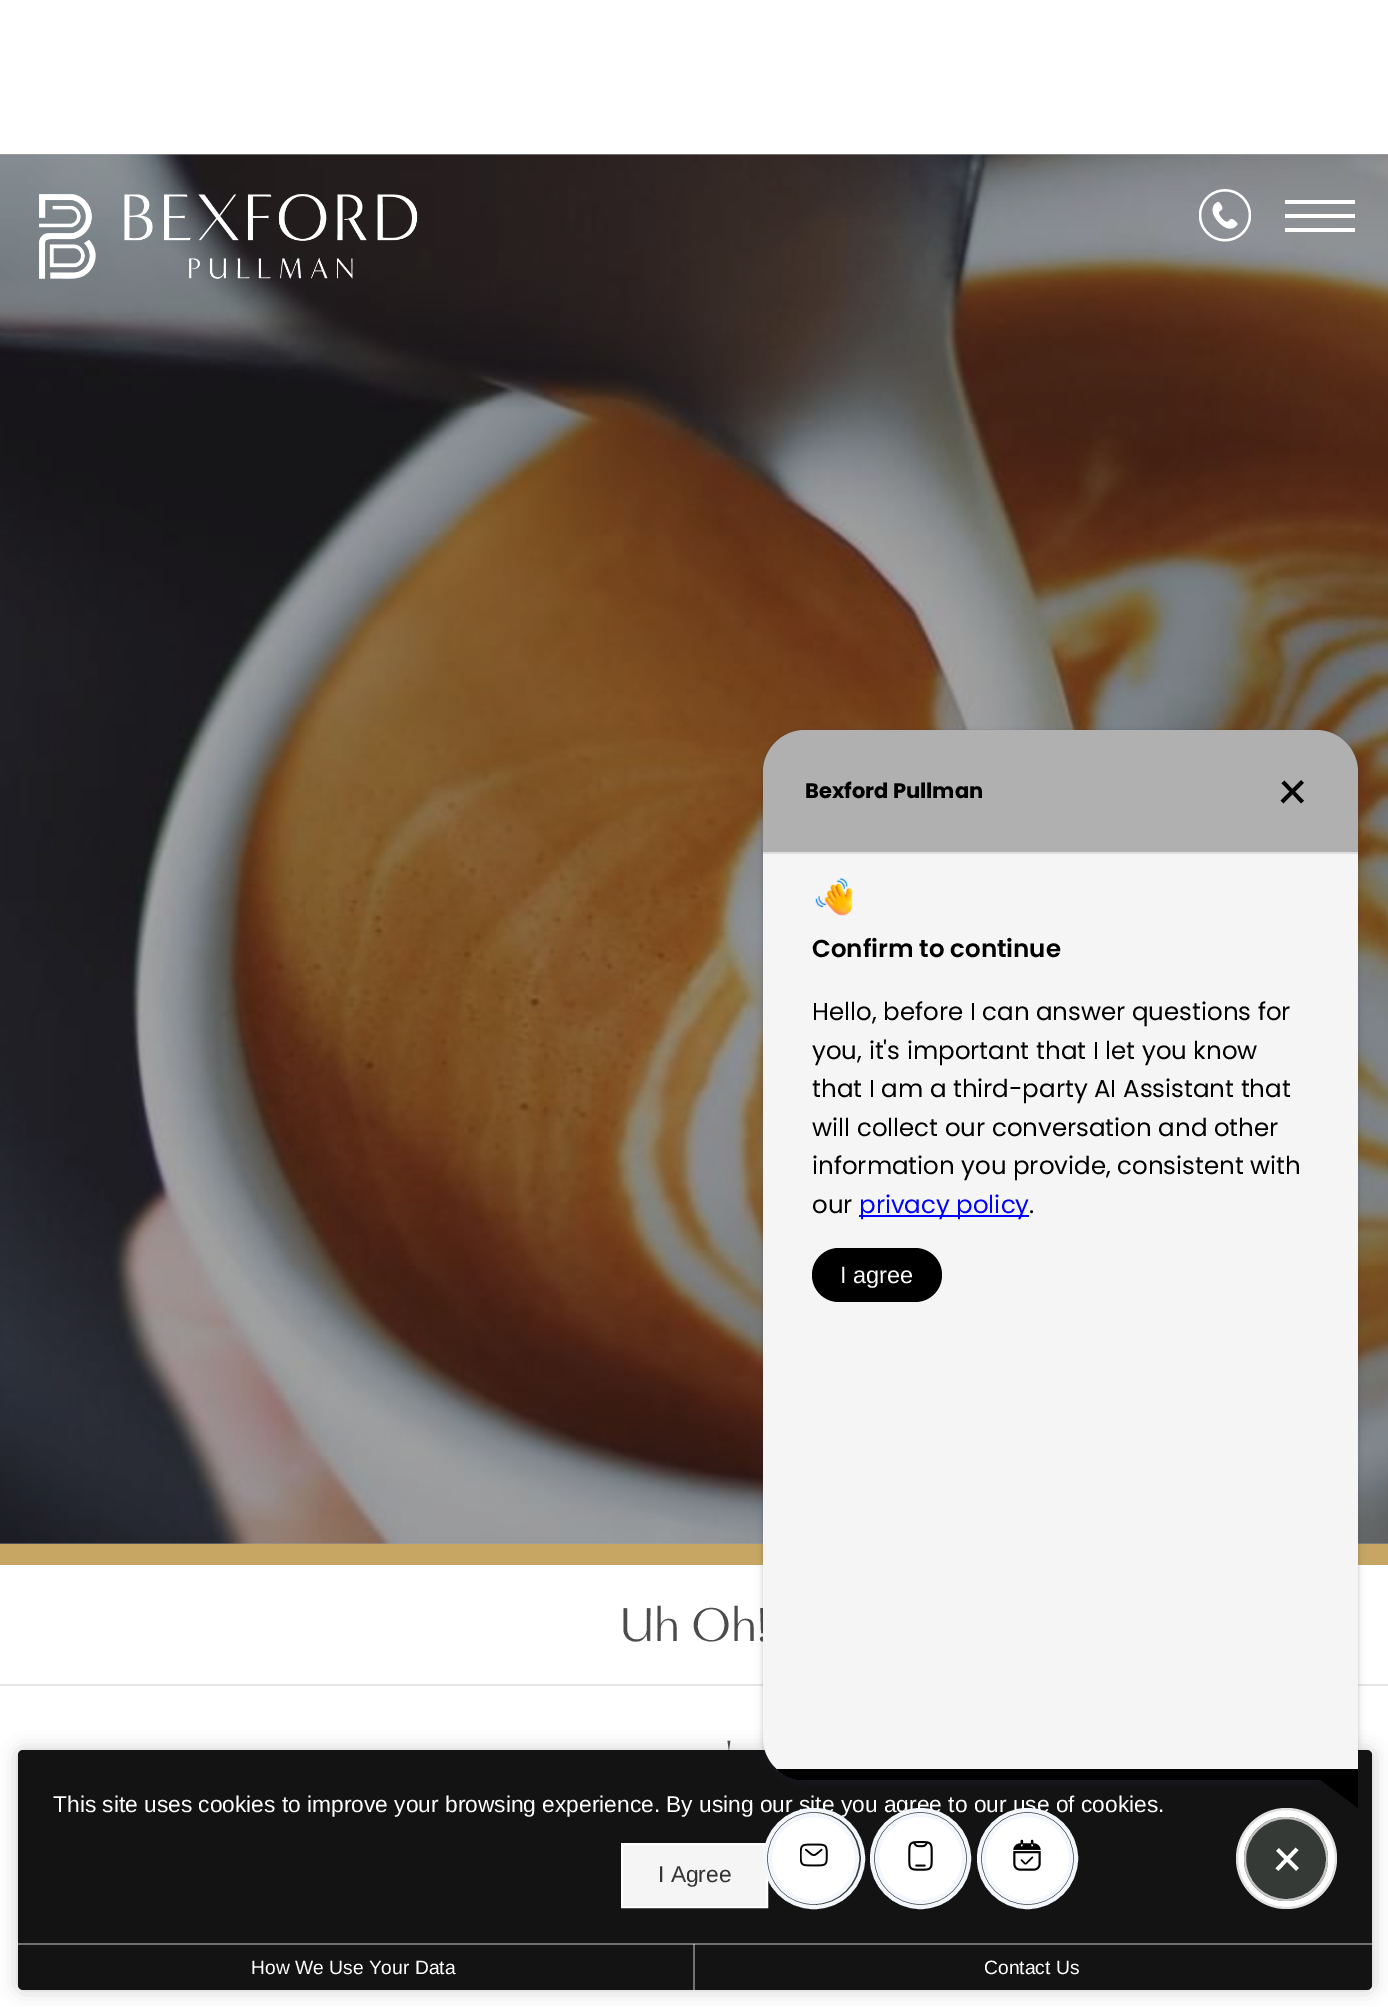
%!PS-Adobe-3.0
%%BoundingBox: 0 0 1388 2007
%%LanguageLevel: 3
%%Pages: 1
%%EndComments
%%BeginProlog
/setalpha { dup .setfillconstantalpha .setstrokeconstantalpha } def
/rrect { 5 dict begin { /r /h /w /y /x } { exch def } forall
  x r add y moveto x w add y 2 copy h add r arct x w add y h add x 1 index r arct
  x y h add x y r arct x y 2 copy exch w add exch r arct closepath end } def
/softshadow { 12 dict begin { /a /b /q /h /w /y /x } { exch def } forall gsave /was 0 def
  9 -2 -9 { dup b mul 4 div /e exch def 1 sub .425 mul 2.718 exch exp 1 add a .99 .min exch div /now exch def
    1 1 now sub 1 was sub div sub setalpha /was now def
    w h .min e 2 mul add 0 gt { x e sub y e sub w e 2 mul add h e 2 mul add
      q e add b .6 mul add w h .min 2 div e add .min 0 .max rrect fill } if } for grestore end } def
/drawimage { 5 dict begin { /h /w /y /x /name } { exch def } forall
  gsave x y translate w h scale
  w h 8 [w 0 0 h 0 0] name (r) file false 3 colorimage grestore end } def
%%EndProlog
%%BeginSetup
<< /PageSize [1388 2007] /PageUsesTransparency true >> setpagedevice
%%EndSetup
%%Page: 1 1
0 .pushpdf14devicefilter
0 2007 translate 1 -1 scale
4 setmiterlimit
1 setgray
0 0 1388 2007 rectfill
0.651 setgray
0 154 1388 1390 rectfill
(images/7.raw) 0 154 1388 1390 drawimage
(images/8.raw) 0 154 1388 1390 drawimage
(images/5.raw) 39 194 379 85 drawimage
(images/6.raw) 1199 189 52 53 drawimage
1 setgray
1285 200 70 4 rectfill
1285 214 70 4 rectfill
1285 228 70 4 rectfill
0.898 setgray
0 1684 1388 2 rectfill
0.78 0.651 0.388 setrgbcolor
0 1544 1388 21 rectfill
0 setgray
18 1750 1354 240 5 9 0.2 softshadow
/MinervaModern-Regular [49 0 0 -49 0 0] selectfont
0.298 setgray
620 1641 moveto (Uh Oh!) show
725 1774 moveto (') show
0.075 setgray
18 1750 1354 240 5 rrect fill
0.196 0.196 0.365 setrgbcolor
765 735 591 1047 40 4.5 0.25 softshadow
0 setgray
765 733 591 1047 40 2.5 0.3 softshadow
0.961 setgray
newpath 763 852 moveto 1358 852 lineto 1358 1780 lineto 805 1780 lineto 782 1780 763 1761 763 1738 curveto closepath fill
gsave
newpath 805 730 moveto 1316 730 lineto 1339 730 1358 749 1358 772 curveto 1358 1780 lineto 805 1780 lineto 782 1780 763 1761 763 1738 curveto 763 772 lineto 763 749 782 730 805 730 curveto closepath clip newpath
0 setgray
776 1769 545 11 rectfill
grestore
0 setgray
newpath 1358 1769 moveto 1358 1808 lineto 1306 1769 lineto closepath fill
1 setgray
newpath 1286.5 1858.5 50.5 0 360 arc closepath fill
0.2 setalpha
0.373 setgray
2 setlinewidth
newpath 1286.5 1858.5 49.5 0 360 arc closepath stroke
1 setalpha
0.212 0.227 0.212 setrgbcolor
newpath 1286 1859 42 0 360 arc closepath fill
0.7 setalpha
1 setgray
newpath 1286 1859 41 0 360 arc closepath stroke
1 setalpha
3.7 setlinewidth
newpath 1277 1869.5 moveto 1297 1849 lineto 1277.5 1849.5 moveto 1297.5 1869.5 lineto stroke
(images/1.raw) 815 877 38 39 drawimage
0 setgray
812 1248 130 54 27 rrect fill
/LiberationSans-Regular [23.5 0 0 -23.5 0 0] selectfont
1 setgray
840 1283 moveto (I agree) show
/Poppins-Regular [24.5 0 0 -24.5 0 0] selectfont
0 setgray
1029 1213 moveto (.) show
0 0 1 setrgbcolor
859 1215 170 2 rectfill
859 1213 moveto (privacy policy) show
0 setgray
812 1213 moveto (our) show
812 1174 moveto (information you provide, consistent with) show
812 1136 moveto (will collect our conversation and other) show
812 1097 moveto (that I am a third-party AI Assistant that) show
812 1059 moveto (you, it's important that I let you know) show
812 1020 moveto (Hello, before I can answer questions for) show
/Poppins-SemiBold [24.5 0 0 -24.5 0 0] selectfont
812 957 moveto (Confirm to continue) show
0.867 setgray
763 852 595 2 rectfill
0.686 0.69 0.686 setrgbcolor
newpath 805 730 moveto 1316 730 lineto 1339 730 1358 749 1358 772 curveto 1358 852 lineto 763 852 lineto 763 772 lineto 763 749 782 730 805 730 curveto closepath fill
0 setgray
newpath 1282 802 moveto 1302.5 781.5 lineto 1283 782 moveto 1302.5 802 lineto stroke
/Poppins-Bold [21 0 0 -21 0 0] selectfont
805 798 moveto (Bexford Pullman) show
/Arimo-Regular [22.75 0 0 -22.75 0 0] selectfont
1 setgray
53 1812 moveto (This site uses cookies to improve your browsing experience. By using our site you agree to our use of cookies.) show
0.212 0.227 0.212 setrgbcolor
newpath 1027.5 1858.5 48.5 0 360 arc closepath gsave fill grestore
0.953 0.965 0.988 setrgbcolor
4 setlinewidth
stroke
1 setgray
newpath 1027.5 1858.5 43.5 0 360 arc closepath gsave fill grestore
0.953 0.965 0.988 setrgbcolor
stroke
(images/4.raw) 1013 1839 28 32 drawimage
0.212 0.227 0.212 setrgbcolor
newpath 920.5 1858.5 48.5 0 360 arc closepath gsave fill grestore
0.953 0.965 0.988 setrgbcolor
stroke
1 setgray
newpath 920.5 1858.5 43.5 0 360 arc closepath gsave fill grestore
0.953 0.965 0.988 setrgbcolor
stroke
(images/3.raw) 908 1841 25 30 drawimage
0.961 setgray
newpath 622 1844 moveto 767 1844 lineto 767 1907 lineto 622 1907 lineto closepath gsave fill grestore
1 setgray
2 setlinewidth
stroke
0.212 0.227 0.212 setrgbcolor
765 1810 98 97 48.5 rrect gsave fill grestore
0.953 0.965 0.988 setrgbcolor
4 setlinewidth
stroke
1 setgray
newpath 813.5 1858.5 43.5 0 360 arc closepath gsave fill grestore
0.953 0.965 0.988 setrgbcolor
stroke
(images/2.raw) 800 1843 28 24 drawimage
0.2 setgray
658 1882 moveto (I Agree) show
0.443 setgray
18 1943 1354 2 rectfill
0.4 setalpha
1 setgray
693 1944 2 46 rectfill
/Arimo-Regular [19.25 0 0 -19.25 0 0] selectfont
1 setalpha
251 1974 moveto (How We Use Your Data) show
984 1974 moveto (Contact Us) show
.poppdf14devicefilter showpage
%%EOF
